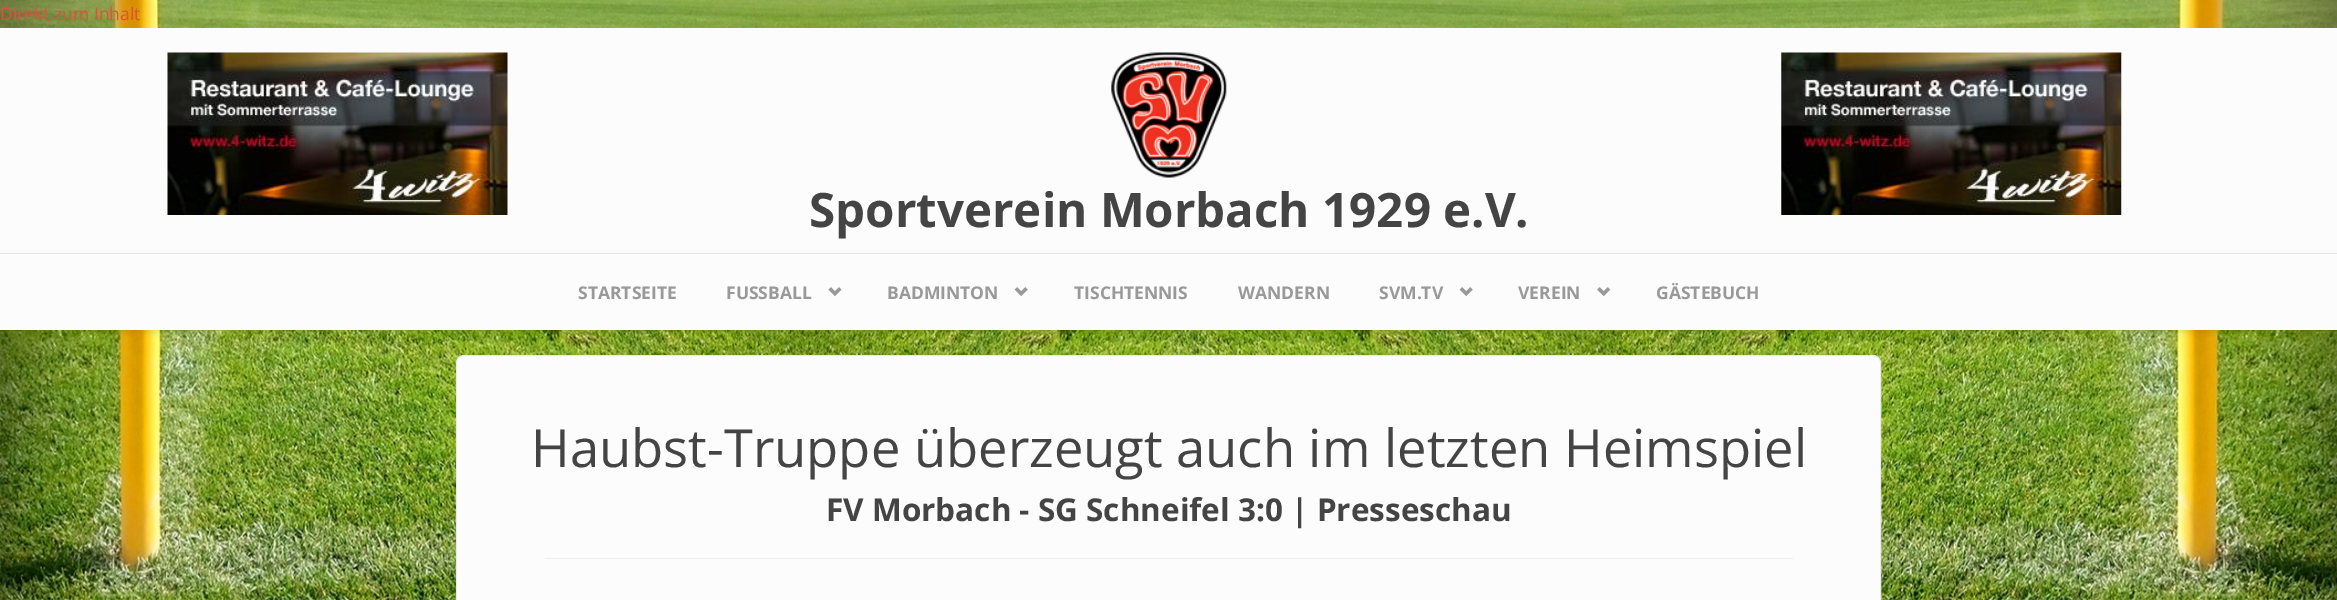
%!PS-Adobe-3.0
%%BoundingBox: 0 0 2337 600
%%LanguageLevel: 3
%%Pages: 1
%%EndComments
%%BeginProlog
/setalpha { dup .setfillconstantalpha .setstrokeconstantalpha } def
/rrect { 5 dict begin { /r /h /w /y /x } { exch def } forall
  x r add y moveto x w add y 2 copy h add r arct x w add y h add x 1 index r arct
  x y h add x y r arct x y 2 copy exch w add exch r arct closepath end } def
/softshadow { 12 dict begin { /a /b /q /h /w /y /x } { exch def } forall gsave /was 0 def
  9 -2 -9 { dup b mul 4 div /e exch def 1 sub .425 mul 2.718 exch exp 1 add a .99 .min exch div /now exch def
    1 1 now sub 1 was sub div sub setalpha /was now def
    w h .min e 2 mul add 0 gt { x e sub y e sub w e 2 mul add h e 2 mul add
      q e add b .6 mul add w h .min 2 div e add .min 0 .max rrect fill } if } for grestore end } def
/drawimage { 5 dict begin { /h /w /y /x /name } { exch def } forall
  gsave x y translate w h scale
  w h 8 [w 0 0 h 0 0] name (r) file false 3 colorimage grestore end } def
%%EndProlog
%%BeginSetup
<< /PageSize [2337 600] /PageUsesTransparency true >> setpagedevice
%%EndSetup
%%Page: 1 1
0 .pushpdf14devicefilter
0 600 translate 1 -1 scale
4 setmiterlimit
1 setgray
0 0 2337 600 rectfill
(images/1.raw) 0 0 2337 600 drawimage
0.988 setgray
0 28 2337 225 rectfill
0.918 setgray
0 253 2337 1 rectfill
(images/2.raw) 167 52 341 163 drawimage
(images/3.raw) 1111 52 116 126 drawimage
(images/4.raw) 1781 52 341 163 drawimage
0 setgray
0 256 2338 77 0 2.5 0.07 softshadow
0.988 setgray
0 254 2337 76 rectfill
(images/5.raw) 828 287 14 10 drawimage
(images/6.raw) 1014 287 14 10 drawimage
(images/6.raw) 1459 287 14 10 drawimage
(images/7.raw) 1597 287 14 10 drawimage
456.5 355.5 1424 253 7.5 rrect gsave fill grestore
0.918 setgray
stroke
0.933 setgray
545 558 1248 1 rectfill
/OpenSans-Regular [17.5 0 0 -17.5 0 0] selectfont
0.906 0.298 0.235 setrgbcolor
0 20 moveto (Direkt zum Inhalt) show
/OpenSans-Bold [47.5 0 0 -47.5 0 0] selectfont
0.267 setgray
809 227 moveto (Sportverein Morbach 1929 e.V.) show
/OpenSans-Bold [17.5 0 0 -17.5 0 0] selectfont
0.6 setgray
578 299 moveto (STARTSEITE) show
726 299 moveto (FUSSBALL) show
887 299 moveto (BADMINTON) show
1074 299 moveto (TISCHTENNIS) show
1238 299 moveto (WANDERN) show
1379 299 moveto (SVM.TV) show
1518 299 moveto (VEREIN) show
1656 299 moveto (GÄSTEBUCH) show
/OpenSans-Regular [52.5 0 0 -52.5 0 0] selectfont
0.267 setgray
531 467 moveto (Haubst-Truppe überzeugt auch im letzten Heimspiel) show
/OpenSans-Bold [31.5 0 0 -31.5 0 0] selectfont
826 521 moveto (FV Morbach - SG Schneifel 3:0 | Presseschau) show
.poppdf14devicefilter showpage
%%EOF
